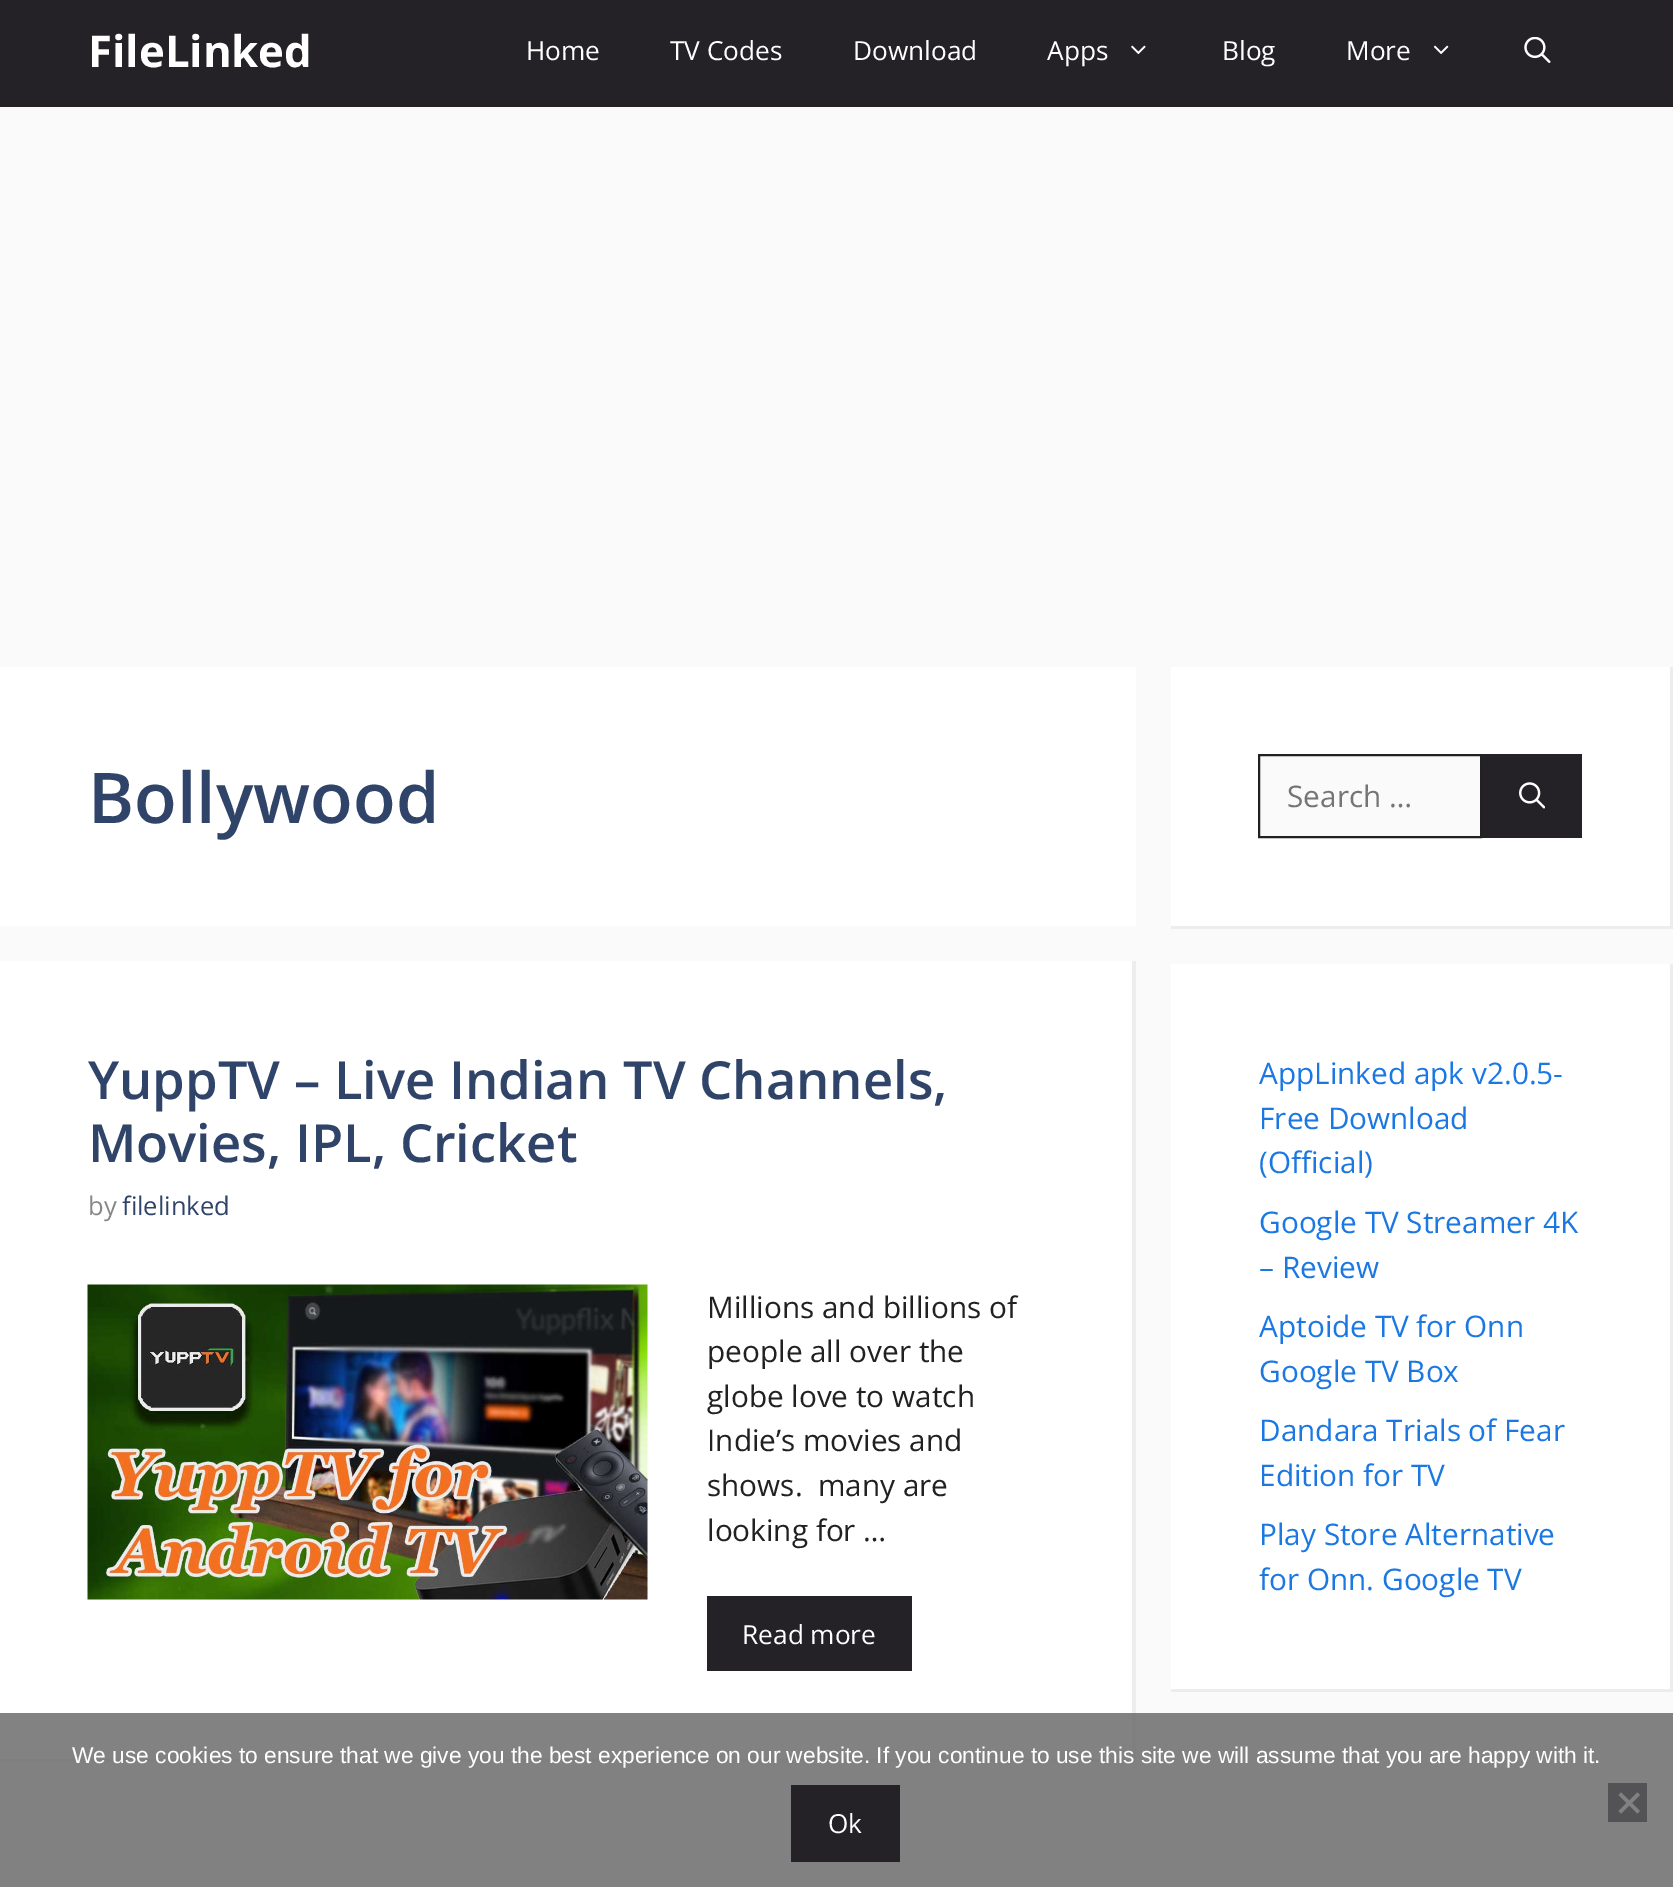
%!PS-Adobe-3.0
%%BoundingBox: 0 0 1673 1887
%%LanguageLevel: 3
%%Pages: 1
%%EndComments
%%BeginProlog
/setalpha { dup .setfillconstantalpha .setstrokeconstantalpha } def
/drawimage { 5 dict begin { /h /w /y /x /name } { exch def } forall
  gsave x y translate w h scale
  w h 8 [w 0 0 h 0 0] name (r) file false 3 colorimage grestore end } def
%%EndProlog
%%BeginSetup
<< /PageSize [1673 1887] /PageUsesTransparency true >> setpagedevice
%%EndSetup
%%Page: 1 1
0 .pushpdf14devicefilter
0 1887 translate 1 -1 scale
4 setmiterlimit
0.98 setgray
0 0 1673 1887 rectfill
0.141 0.133 0.149 setrgbcolor
0 0 1673 107 rectfill
(images/1.raw) 1131 45 15 10 drawimage
(images/2.raw) 1433 45 16 9 drawimage
(images/3.raw) 1524 37 27 26 drawimage
1 setgray
0 667 1136 259 rectfill
0 961 1136 801 rectfill
0.929 setgray
newpath 1136 961 moveto 1136 1762 lineto 1132 1759 lineto 1132 961 lineto closepath fill
0.07 setalpha
0 setgray
newpath 1136 1762 moveto 0 1762 lineto 0 1759 lineto 1132 1759 lineto closepath fill
1 setalpha
(images/4.raw) 87 1284 561 316 drawimage
0.141 0.133 0.149 setrgbcolor
707 1596 205 75 rectfill
1 setgray
1171 667 502 262 rectfill
0.929 setgray
newpath 1673 667 moveto 1673 929 lineto 1670 926 lineto 1670 667 lineto closepath fill
0.07 setalpha
0 setgray
newpath 1673 929 moveto 1171 929 lineto 1171 926 lineto 1670 926 lineto closepath fill
1 setalpha
0.98 setgray
newpath 1259 755 moveto 1481 755 lineto 1481 837 lineto 1259 837 lineto closepath gsave fill grestore
0.129 setgray
2 setlinewidth
stroke
0.141 0.133 0.149 setrgbcolor
1482 754 100 84 rectfill
(images/5.raw) 1519 782 26 27 drawimage
1 setgray
1171 964 502 728 rectfill
0.929 setgray
newpath 1673 964 moveto 1673 1692 lineto 1670 1689 lineto 1670 964 lineto closepath fill
0.07 setalpha
0 setgray
newpath 1673 1692 moveto 1171 1692 lineto 1171 1689 lineto 1670 1689 lineto closepath fill
0.8 setalpha
0.388 setgray
0 1713 1673 174 rectfill
1 setalpha
0.141 0.133 0.149 setrgbcolor
791 1785 109 77 rectfill
0.325 0.322 0.329 setrgbcolor
1608 1783 39 39 rectfill
0.506 setgray
newpath 1637.5 1792.5 moveto 1640 1795 lineto 1621 1813.5 lineto 1618.5 1811 lineto closepath fill
newpath 1618.5 1795 moveto 1621 1792.5 lineto 1640 1811 lineto 1637.5 1813.5 lineto closepath fill
/OpenSans-Bold [43.75 0 0 -43.75 0 0] selectfont
1 setgray
88 67 moveto (FileLinked) show
/OpenSans-Regular [26.25 0 0 -26.25 0 0] selectfont
526 60 moveto (Home) show
670 60 moveto (TV Codes) show
853 60 moveto (Download) show
1047 60 moveto (Apps) show
1222 60 moveto (Blog) show
1346 60 moveto (More) show
/OpenSans-SemiBold [70 0 0 -70 0 0] selectfont
0.184 0.267 0.408 setrgbcolor
88 823 moveto (Bollywood) show
/OpenSans-SemiBold [52.5 0 0 -52.5 0 0] selectfont
88 1099 moveto (YuppTV – Live Indian TV Channels,) show
88 1162 moveto (Movies, IPL, Cricket) show
/OpenSans-Regular [25.5 0 0 -25.5 0 0] selectfont
0.529 setgray
88 1215 moveto (by) show
0.184 0.267 0.408 setrgbcolor
122 1215 moveto (filelinked) show
/OpenSans-Regular [29.75 0 0 -29.75 0 0] selectfont
0.129 setgray
707 1318 moveto (Millions and billions of) show
707 1362 moveto (people all over the) show
707 1407 moveto (globe love to watch) show
707 1451 moveto (Indie’s movies and) show
707 1496 moveto (shows.  many are) show
707 1541 moveto (looking for …) show
/OpenSans-Regular [26.25 0 0 -26.25 0 0] selectfont
1 setgray
742 1644 moveto (Read more) show
/OpenSans-Regular [29.75 0 0 -29.75 0 0] selectfont
0.459 setgray
1287 807 moveto (Search …) show
0.106 0.471 0.886 setrgbcolor
1259 1084 moveto (AppLinked apk v2.0.5-) show
1259 1129 moveto (Free Download) show
1259 1173 moveto (\(Official\)) show
1259 1233 moveto (Google TV Streamer 4K) show
1259 1278 moveto (– Review) show
1259 1337 moveto (Aptoide TV for Onn) show
1259 1382 moveto (Google TV Box) show
1259 1441 moveto (Dandara Trials of Fear) show
1259 1486 moveto (Edition for TV) show
1259 1545 moveto (Play Store Alternative) show
1259 1590 moveto (for Onn. Google TV) show
/LiberationSans-Regular [22.75 0 0 -22.75 0 0] selectfont
1 setgray
72 1763 moveto (We use cookies to ensure that we give you the best experience on our website. If you continue to use this site we will assume that you are happy with it.) show
/OpenSans-Regular [26.25 0 0 -26.25 0 0] selectfont
828 1833 moveto (Ok) show
.poppdf14devicefilter showpage
%%EOF
